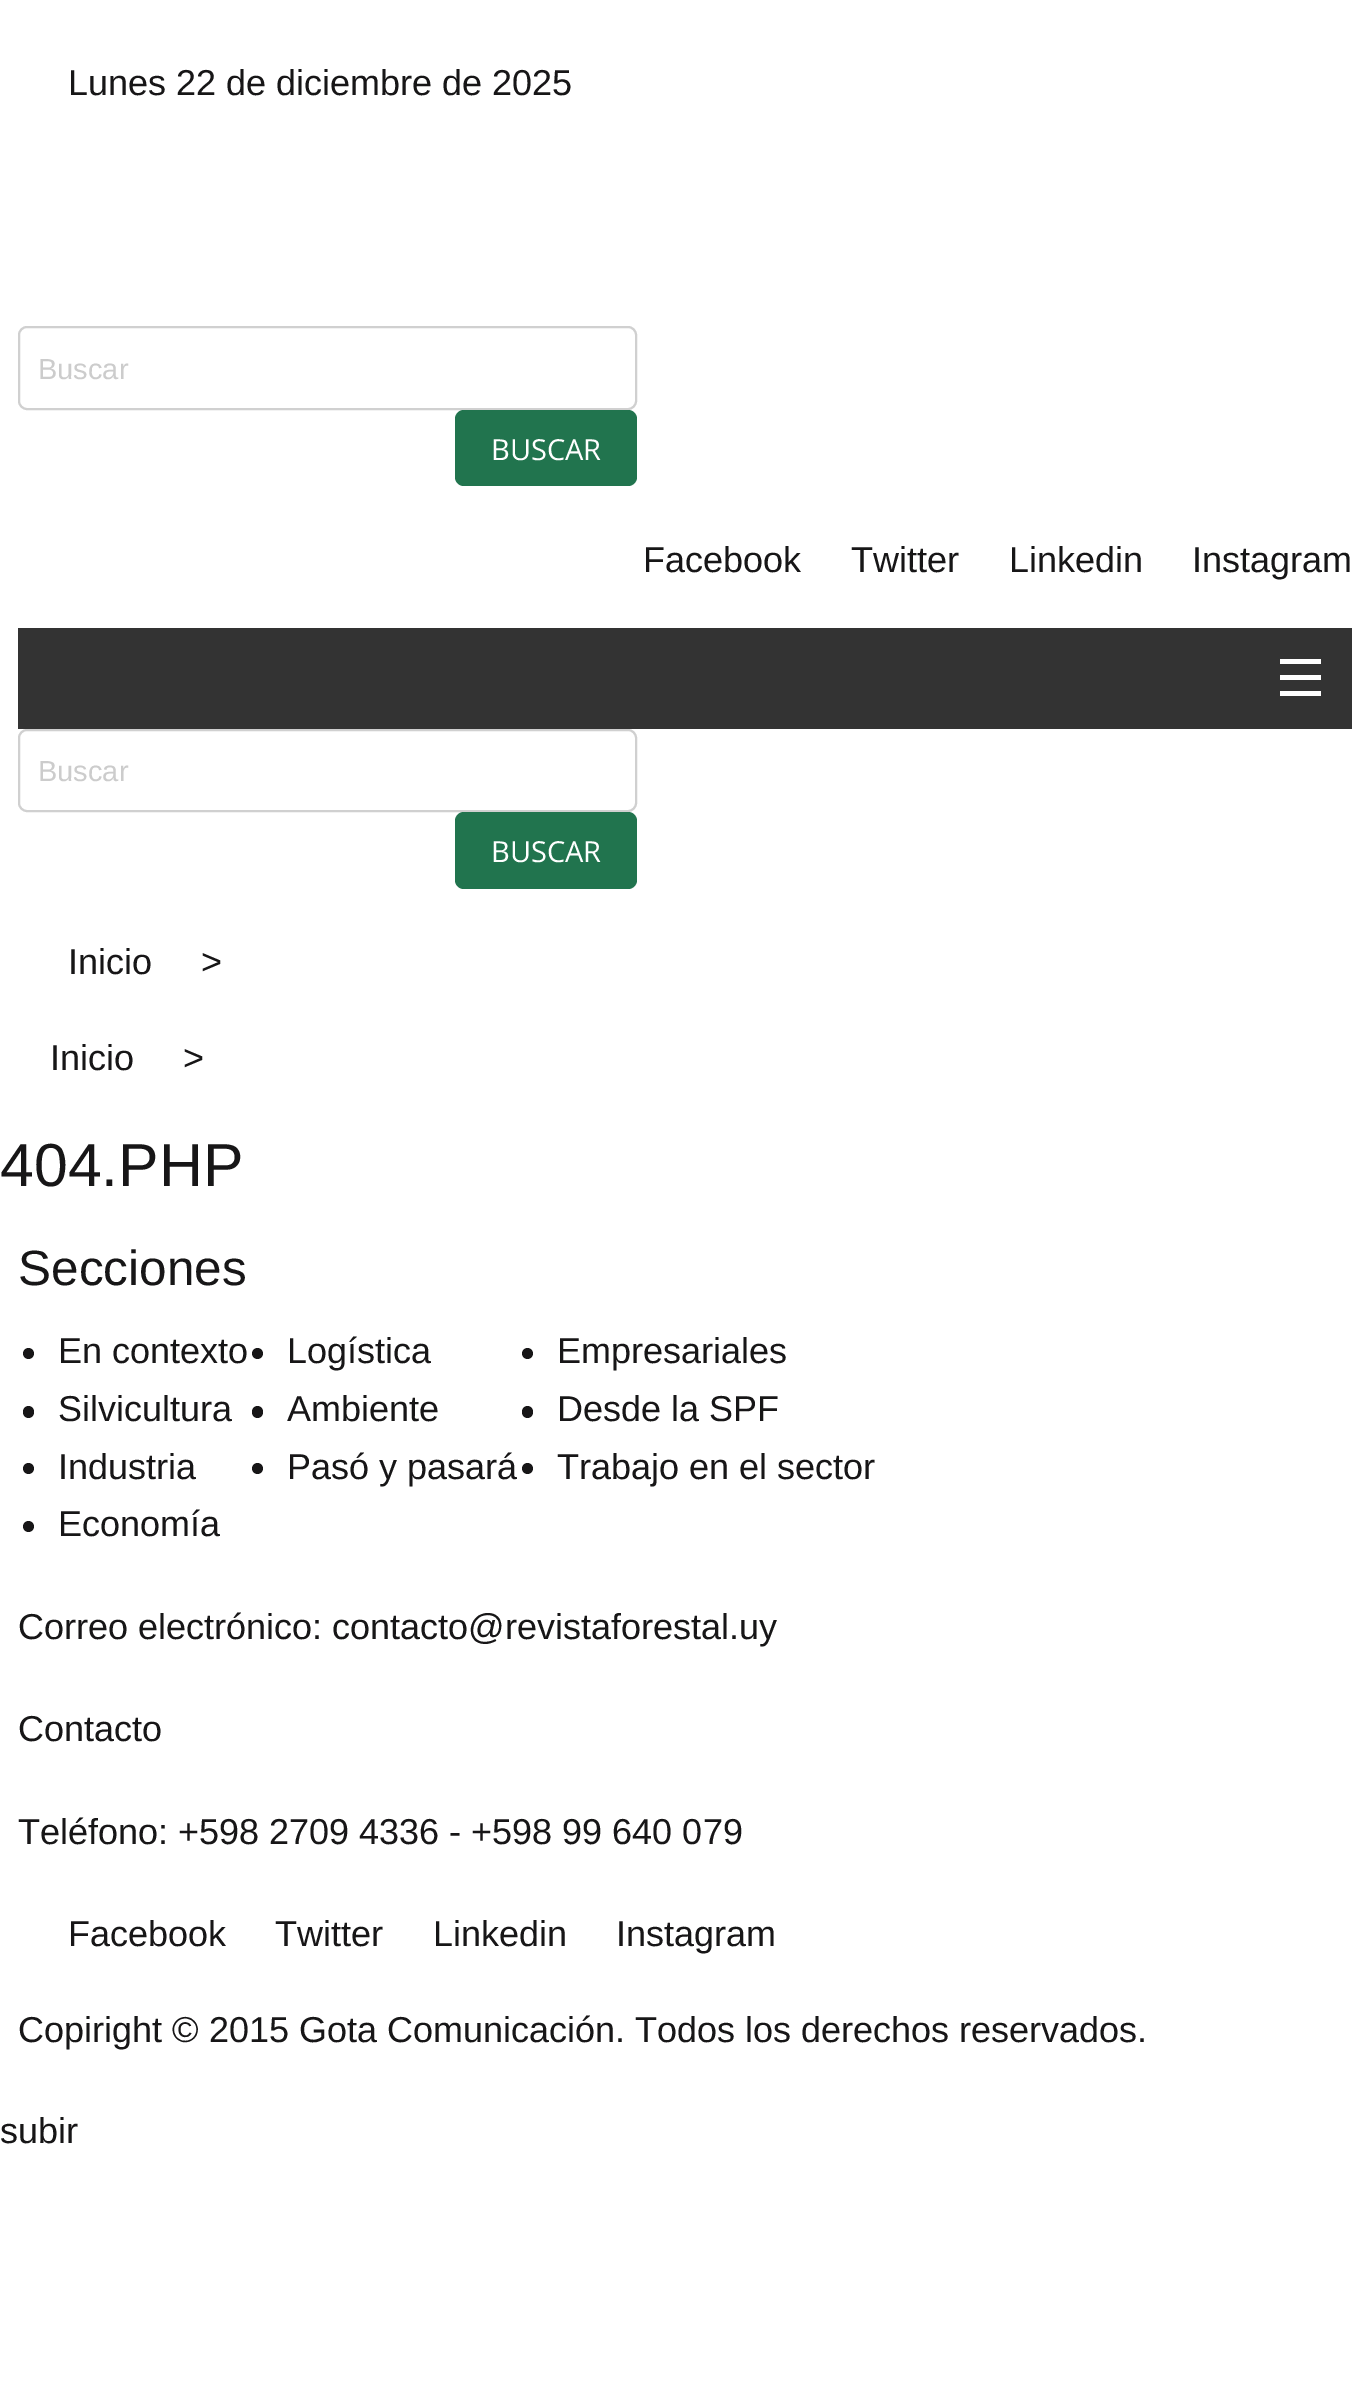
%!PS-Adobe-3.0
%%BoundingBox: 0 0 1370 2391
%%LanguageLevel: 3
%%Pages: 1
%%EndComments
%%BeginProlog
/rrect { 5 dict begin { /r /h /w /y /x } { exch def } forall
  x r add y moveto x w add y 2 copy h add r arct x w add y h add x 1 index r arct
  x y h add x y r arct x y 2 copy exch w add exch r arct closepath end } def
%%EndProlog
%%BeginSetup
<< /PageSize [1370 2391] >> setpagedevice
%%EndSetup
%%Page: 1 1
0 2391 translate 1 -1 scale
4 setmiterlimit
1 setgray
0 0 1370 2391 rectfill
0.816 setgray
2 setlinewidth
19 327 617 82 8 rrect stroke
0.129 0.455 0.306 setrgbcolor
455 410 182 76 9 rrect fill
0.2 setgray
18 628 1334 101 rectfill
1 setgray
1280 691 41 5 rectfill
1280 675 41 5 rectfill
1280 659 41 5 rectfill
0.816 setgray
19 730 617 81 8 rrect stroke
0.129 0.455 0.306 setrgbcolor
455 812 182 77 9 rrect fill
0.09 0.086 0.09 setrgbcolor
newpath 28.5 1353.5 5.5 0 360 arc closepath fill
23 1406 11 12 5.5 rrect fill
newpath 28.5 1468.5 5.5 0 360 arc closepath fill
newpath 28.5 1526.5 5.5 0 360 arc closepath fill
newpath 257.5 1353.5 5.5 0 360 arc closepath fill
252 1406 11 12 5.5 rrect fill
newpath 257.5 1468.5 5.5 0 360 arc closepath fill
newpath 527.5 1353.5 5.5 0 360 arc closepath fill
522 1406 11 12 5.5 rrect fill
newpath 527.5 1468.5 5.5 0 360 arc closepath fill
/LiberationSans-Regular [36 0 0 -36 0 0] selectfont
68 95 moveto (Lunes 22 de diciembre de 2025) show
/LiberationSans-Regular [29 0 0 -29 0 0] selectfont
0.8 setgray
38 379 moveto (Buscar) show
/OpenSans-Regular [29 0 0 -29 0 0] selectfont
1 setgray
491 460 moveto (BUSCAR) show
/LiberationSans-Regular [36 0 0 -36 0 0] selectfont
0.09 0.086 0.09 setrgbcolor
643 572 moveto (Facebook) show
851 572 moveto (Twitter) show
1009 572 moveto (Linkedin) show
1192 572 moveto (Instagram) show
/LiberationSans-Regular [29 0 0 -29 0 0] selectfont
0.8 setgray
38 781 moveto (Buscar) show
/OpenSans-Regular [29 0 0 -29 0 0] selectfont
1 setgray
491 862 moveto (BUSCAR) show
/LiberationSans-Regular [36 0 0 -36 0 0] selectfont
0.09 0.086 0.09 setrgbcolor
68 974 moveto (Inicio) show
201 974 moveto (>) show
50 1070 moveto (Inicio) show
183 1070 moveto (>) show
/LiberationSans-Regular [60.75 0 0 -60.75 0 0] selectfont
0 1186 moveto (404.PHP) show
/LiberationSans-Regular [49.5 0 0 -49.5 0 0] selectfont
18 1285 moveto (Secciones) show
/LiberationSans-Regular [36 0 0 -36 0 0] selectfont
58 1363 moveto (En contexto) show
58 1421 moveto (Silvicultura) show
58 1479 moveto (Industria) show
58 1536 moveto (Economía) show
287 1363 moveto (Logística) show
287 1421 moveto (Ambiente) show
287 1479 moveto (Pasó y pasará) show
557 1363 moveto (Empresariales) show
557 1421 moveto (Desde la SPF) show
557 1479 moveto (Trabajo en el sector) show
18 1639 moveto (Correo electrónico: contacto@revistaforestal.uy) show
18 1741 moveto (Contacto) show
18 1844 moveto (Teléfono: +598 2709 4336 - +598 99 640 079) show
68 1946 moveto (Facebook) show
275 1946 moveto (Twitter) show
433 1946 moveto (Linkedin) show
616 1946 moveto (Instagram) show
18 2042 moveto (Copiright © 2015 Gota Comunicación. Todos los derechos reservados.) show
0 2143 moveto (subir) show
showpage
%%EOF
